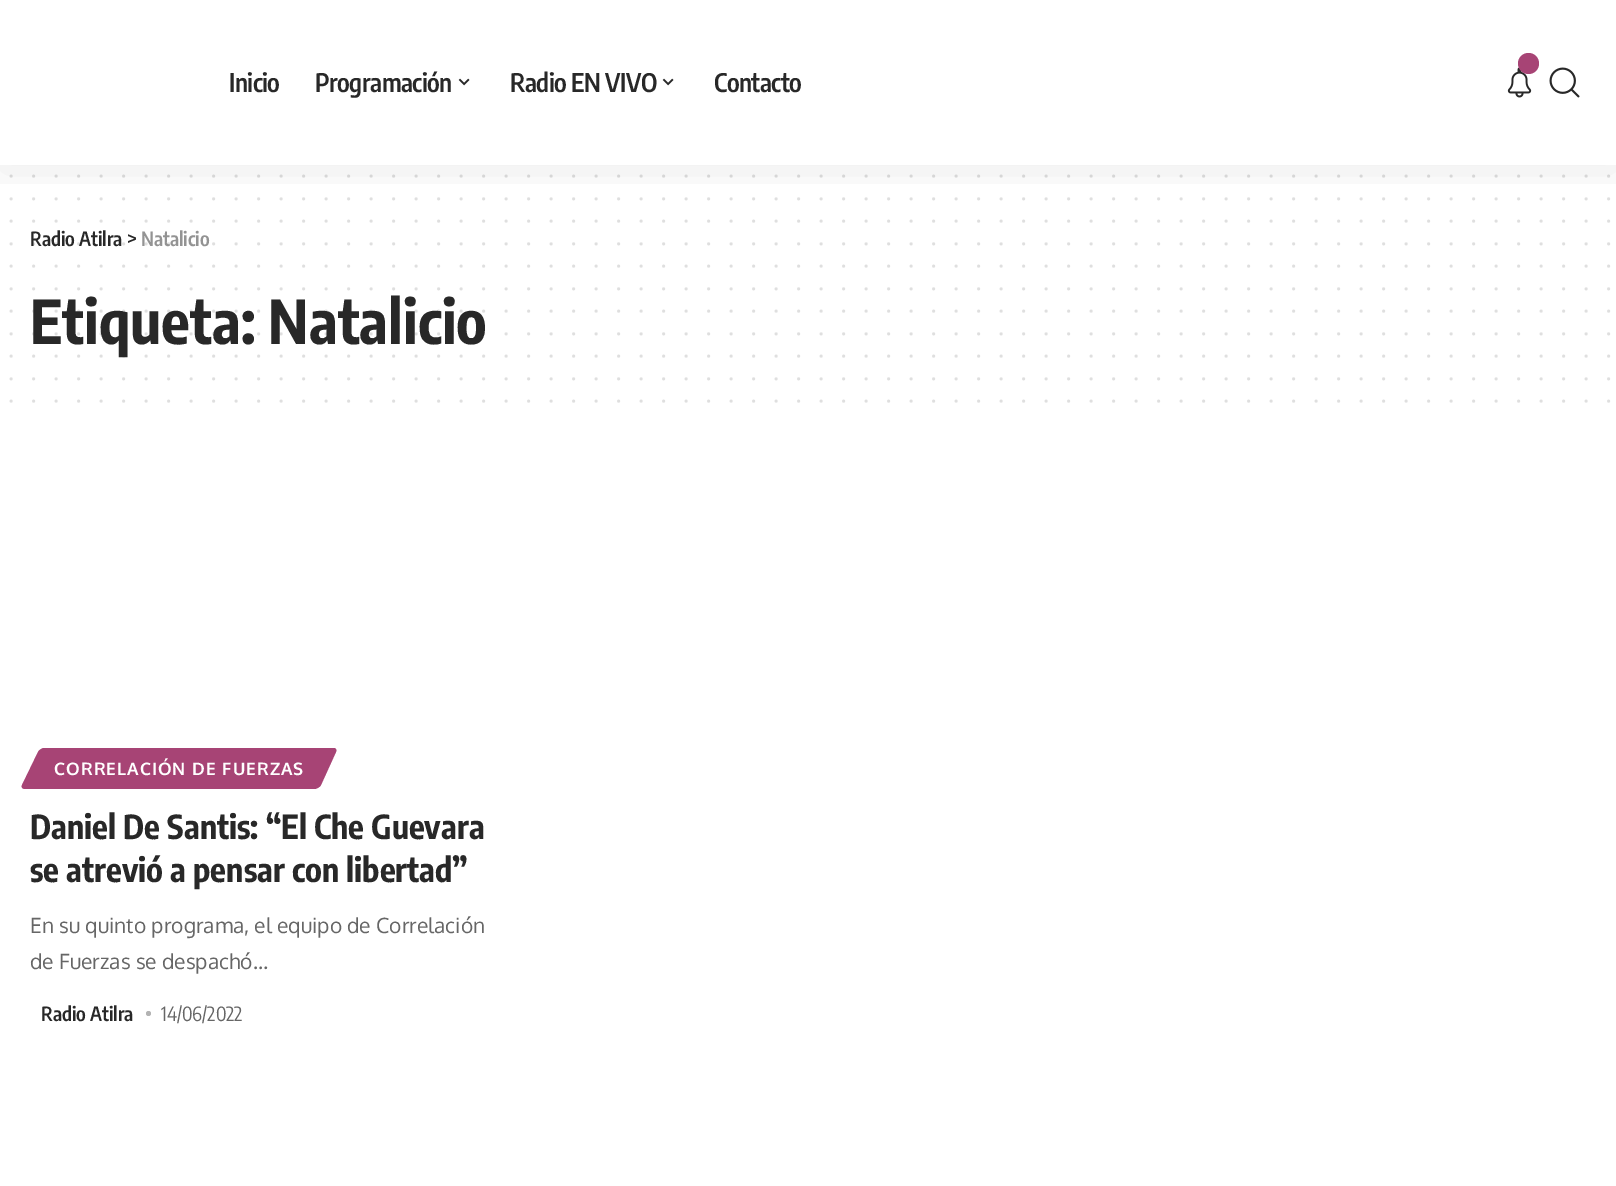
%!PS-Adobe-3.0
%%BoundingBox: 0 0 1616 1186
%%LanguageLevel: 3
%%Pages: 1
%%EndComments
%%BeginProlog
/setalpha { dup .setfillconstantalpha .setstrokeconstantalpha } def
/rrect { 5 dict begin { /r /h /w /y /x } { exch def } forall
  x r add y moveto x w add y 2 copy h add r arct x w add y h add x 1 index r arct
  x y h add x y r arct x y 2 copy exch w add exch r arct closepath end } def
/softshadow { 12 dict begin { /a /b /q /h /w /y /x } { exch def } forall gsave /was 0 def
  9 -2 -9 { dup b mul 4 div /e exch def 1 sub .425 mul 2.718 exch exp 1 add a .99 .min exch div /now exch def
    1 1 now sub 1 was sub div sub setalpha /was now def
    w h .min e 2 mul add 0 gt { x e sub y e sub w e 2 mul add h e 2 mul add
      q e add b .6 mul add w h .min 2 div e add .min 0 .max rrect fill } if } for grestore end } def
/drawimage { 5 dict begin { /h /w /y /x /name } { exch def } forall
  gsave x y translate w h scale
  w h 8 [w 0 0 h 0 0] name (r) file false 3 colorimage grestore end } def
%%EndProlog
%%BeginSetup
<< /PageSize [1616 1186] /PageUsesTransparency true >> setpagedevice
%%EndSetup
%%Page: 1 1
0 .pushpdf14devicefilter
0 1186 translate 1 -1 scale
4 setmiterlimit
1 setgray
0 0 1616 1186 rectfill
0.875 setgray
3 setlinewidth
1 setlinecap
[0 22.5] 0 setdash
newpath 11.2 176.2 moveto 1609.1 176.2 lineto stroke
newpath 11.2 198.8 moveto 1609.1 198.8 lineto stroke
newpath 11.2 221.2 moveto 1609.1 221.2 lineto stroke
gsave
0 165 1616 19 rectclip
0 setgray
0 6 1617 165 0 22.5 0.07 softshadow
grestore
(images/1.raw) 458 78 12 8 drawimage
(images/1.raw) 662 78 12 8 drawimage
(images/2.raw) 1507 67 25 31 drawimage
0.655 0.267 0.459 setrgbcolor
newpath 1528.5 63.5 10.5 0 360 arc closepath fill
(images/3.raw) 1549 67 31 31 drawimage
0.875 setgray
newpath 11.2 266.2 moveto 1609.1 266.2 lineto stroke
newpath 11.2 288.8 moveto 1609.1 288.8 lineto stroke
newpath 11.2 378.8 moveto 1609.1 378.8 lineto stroke
newpath 11.2 401.2 moveto 1609.1 401.2 lineto stroke
0.655 0.267 0.459 setrgbcolor
newpath 44 748 moveto 334 748 lineto 336 748 337 750 336 752 curveto 321 785 lineto 320 787 317 789 314 789 curveto 25 789 lineto 22 789 21 787 22 785 curveto 38 752 lineto 39 750 42 748 44 748 curveto closepath fill
0.702 setgray
newpath 148.5 1013.5 2.5 0 360 arc closepath fill
/EncodeSansCondensed-SemiBold [25.5 0 0 -25.5 0 0] selectfont
0.157 setgray
229 92 moveto -0.5 0 (Inicio) ashow
315 92 moveto -0.5 0 (Programación) ashow
510 92 moveto -0.5 0 (Radio EN VIVO) ashow
714 92 moveto -0.5 0 (Contacto) ashow
/EncodeSansCondensed-SemiBold [19.5 0 0 -19.5 0 0] selectfont
30 246 moveto (Radio Atilra >) show
0.15 setalpha
newpath 11.2 243.8 moveto 1609.1 243.8 lineto stroke
1 setalpha
0.576 setgray
141 246 moveto (Natalicio) show
/EncodeSansCondensed-Bold [60 0 0 -60 0 0] selectfont
0.157 setgray
30 344 moveto (Etiqueta: Natalicio) show
0.15 setalpha
newpath 11.2 356.2 moveto 1609.1 356.2 lineto stroke
newpath 11.2 333.8 moveto 1609.1 333.8 lineto stroke
newpath 11.2 311.2 moveto 1609.1 311.2 lineto stroke
/Oxygen-Bold [17.25 0 0 -17.25 0 0] selectfont
1 setalpha
1 setgray
54 775 moveto 1.05 0 (CORRELACIÓN DE FUERZAS) ashow
/EncodeSansCondensed-Bold [33 0 0 -33 0 0] selectfont
0.157 setgray
30 839 moveto (Daniel De Santis: “El Che Guevara) show
30 882 moveto (se atrevió a pensar con libertad”) show
/Oxygen-Regular [21 0 0 -21 0 0] selectfont
0.4 setgray
30 933 moveto (En su quinto programa, el equipo de Correlación) show
30 969 moveto (de Fuerzas se despachó…) show
/EncodeSansCondensed-SemiBold [19.5 0 0 -19.5 0 0] selectfont
0.157 setgray
41 1021 moveto (Radio Atilra) show
/EncodeSansCondensed-Regular [19.5 0 0 -19.5 0 0] selectfont
0.4 setgray
161 1021 moveto (14/06/2022) show
.poppdf14devicefilter showpage
%%EOF
